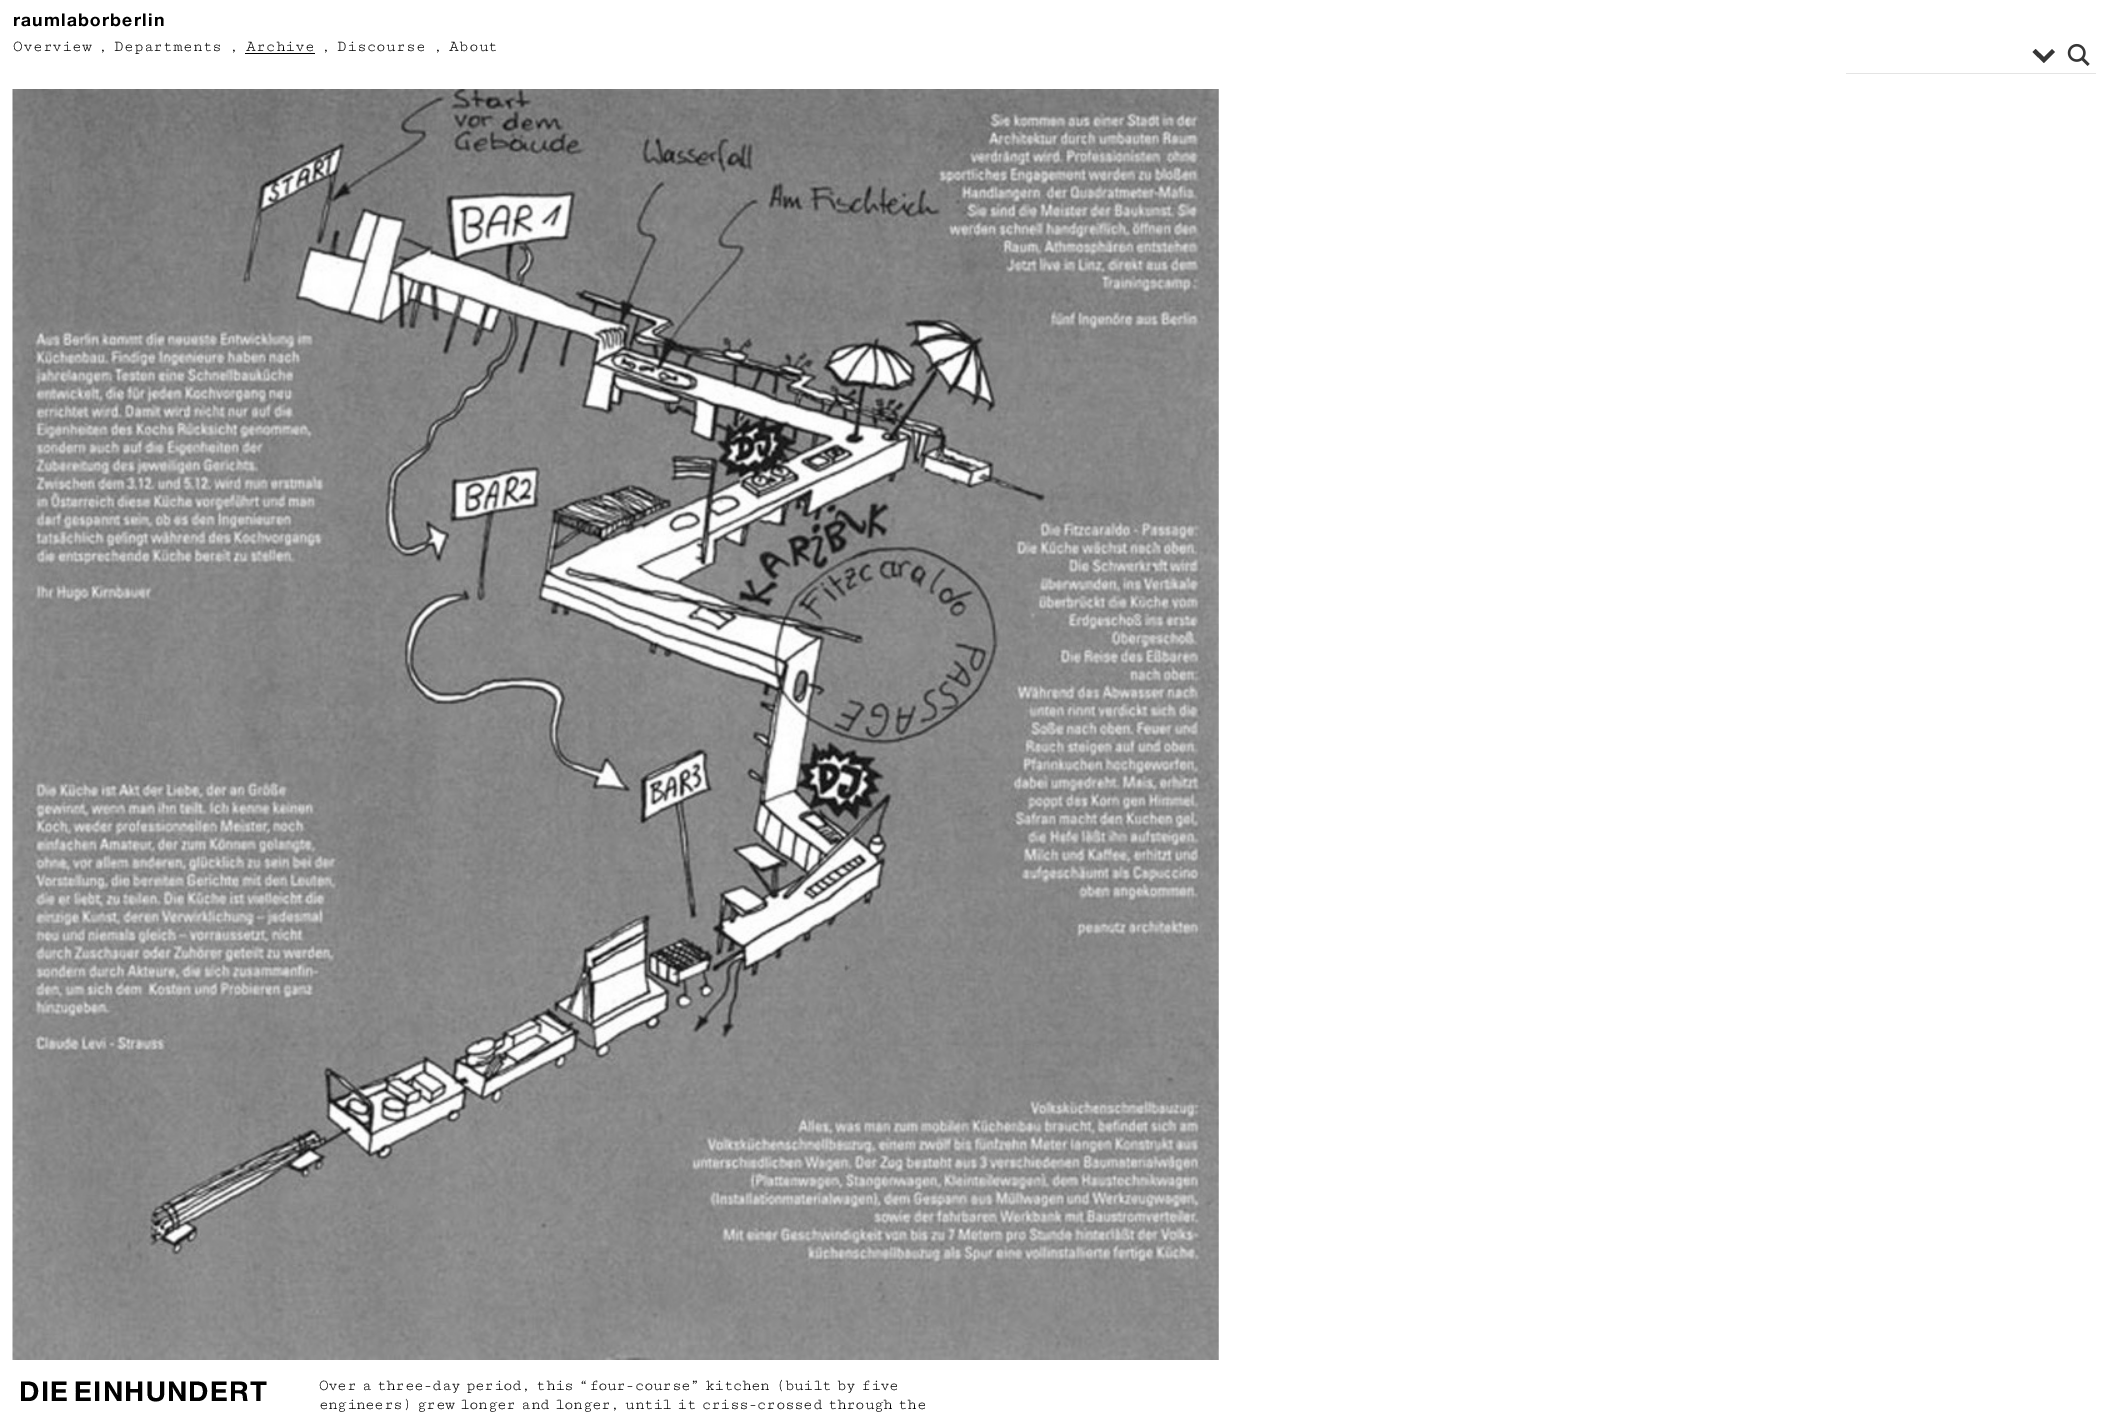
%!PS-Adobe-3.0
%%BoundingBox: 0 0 2121 1423
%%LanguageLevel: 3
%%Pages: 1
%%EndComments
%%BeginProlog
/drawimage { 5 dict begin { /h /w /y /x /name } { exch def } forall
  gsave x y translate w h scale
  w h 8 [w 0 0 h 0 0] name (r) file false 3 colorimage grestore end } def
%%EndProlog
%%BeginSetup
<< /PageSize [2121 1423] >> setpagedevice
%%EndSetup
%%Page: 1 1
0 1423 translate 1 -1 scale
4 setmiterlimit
1 setgray
0 0 2121 1423 rectfill
0 setgray
245 53 70 1 rectfill
0.894 setgray
newpath 1846 39 moveto 1846 74 lineto 2096 74 lineto 2096 72 lineto 1846 72 lineto closepath fill
1 setgray
1846 72 250 1 rectfill
0.212 setgray
newpath 2052 49 moveto 2055 52 lineto 2044 63 lineto 2032.5 52 lineto 2035.5 49 lineto 2044 57 lineto closepath fill
(images/1.raw) 2067 43 23 23 drawimage
(images/2.raw) 12 89 1207 1271 drawimage
/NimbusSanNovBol-Regular [18.75 0 0 -18.75 0 0] selectfont
0 setgray
13 26 moveto 1.25 0 (raumlaborberlin) ashow
/CutiveMono-Regular [16.25 0 0 -16.25 0 0] selectfont
13 51 moveto (Overview) show
98 51 moveto (,) show
114 51 moveto (Departments) show
229 51 moveto (,) show
246 51 moveto (Archive) show
321 51 moveto (,) show
337 51 moveto (Discourse) show
433 51 moveto (,) show
449 51 moveto (About) show
/NimbusSanNovBol-Regular [29.25 0 0 -29.25 0 0] selectfont
19 1401 moveto -3.25 0 32 1.25 0 (DIE EINHUNDERT) awidthshow
/CutiveMono-Regular [16.25 0 0 -16.25 0 0] selectfont
319 1390 moveto -3.25 0 32 -0.62 0 (Over a three-day period, this “four-course” kitchen \(built by five) awidthshow
319 1409 moveto -3.25 0 32 -0.62 0 (engineers\) grew longer and longer, until it criss-crossed through the) awidthshow
showpage
%%EOF
